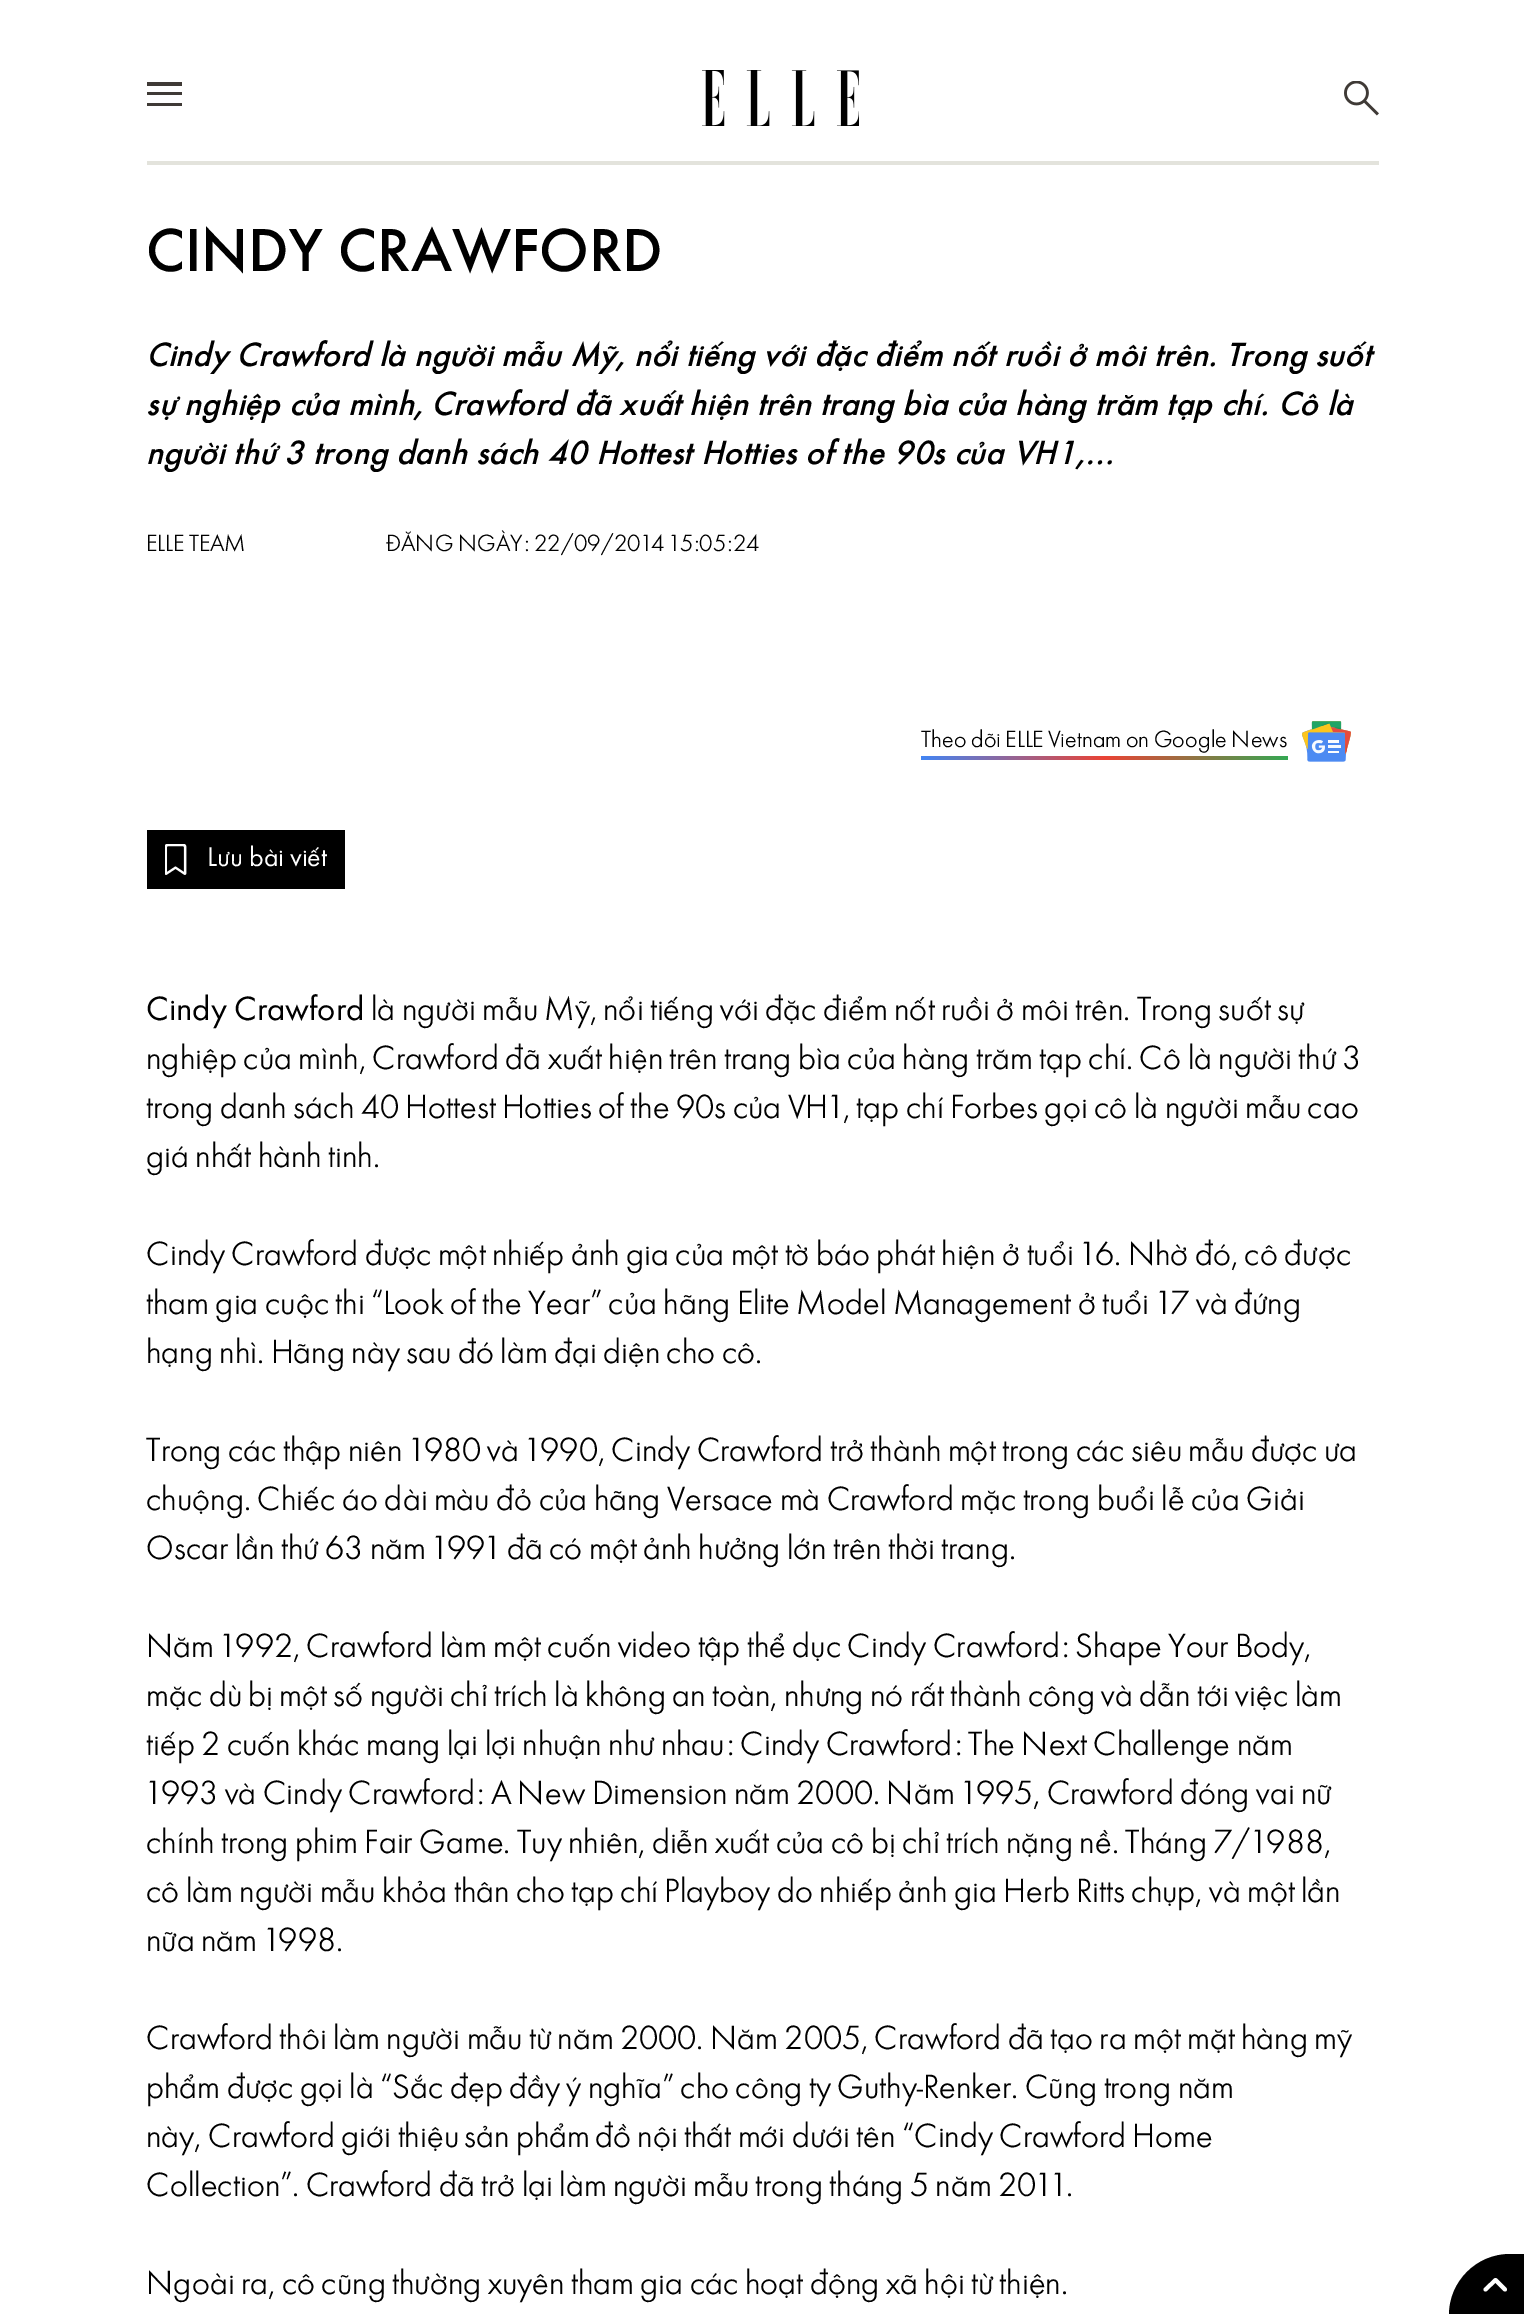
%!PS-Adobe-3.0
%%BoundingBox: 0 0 1524 2314
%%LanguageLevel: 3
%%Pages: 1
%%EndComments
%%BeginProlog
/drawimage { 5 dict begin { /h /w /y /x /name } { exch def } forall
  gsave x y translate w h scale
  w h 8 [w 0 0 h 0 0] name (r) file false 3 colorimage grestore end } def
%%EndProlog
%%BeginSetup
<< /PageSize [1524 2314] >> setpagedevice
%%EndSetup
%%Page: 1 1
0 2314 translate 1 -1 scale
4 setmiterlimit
1 setgray
0 0 1524 2314 rectfill
0.89 0.89 0.863 setrgbcolor
147 161 1232 4 rectfill
0.247 0.227 0.212 setrgbcolor
147 82 35 4 rectfill
147 103 35 3 rectfill
147 92 35 3 rectfill
(images/1.raw) 702 70 157 56 drawimage
(images/2.raw) 1344 81 35 35 drawimage
gsave newpath 921 756 moveto 1288 756 lineto 1288 760 lineto 921 760 lineto closepath clip newpath
<< /ShadingType 2 /ColorSpace /DeviceRGB /Coords [921 758 1288 758] /Extend [true true] /Function << /FunctionType 3 /Domain [0 1] /Functions [<< /FunctionType 2 /Domain [0 1] /C0 [0.259 0.522 0.957] /C1 [0.918 0.263 0.208] /N 1 >> << /FunctionType 2 /Domain [0 1] /C0 [0.918 0.263 0.208] /C1 [0.204 0.659 0.325] /N 1 >>] /Bounds [0.5] /Encode [0 1 0 1] >> >> shfill grestore
(images/3.raw) 1302 721 49 41 drawimage
0 setgray
147 830 198 59 rectfill
(images/4.raw) 165 844 22 31 drawimage
newpath 1510 2254 moveto 1524 2254 lineto 1524 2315 lineto 1449 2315 lineto 1449 2281.5 1476.5 2254 1510 2254 curveto closepath fill
1 setgray
3.9 setlinewidth
1 setlinecap
1 setlinejoin
newpath 1505 2289.5 moveto 1495.5 2280 lineto 1485.5 2289.5 lineto stroke
/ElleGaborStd-Medium [63 0 0 -63 0 0] selectfont
0 setgray
146 271 moveto (CINDY CRAWFORD) show
/ElleGaborStd-MediumItalic [35 0 0 -35 0 0] selectfont
146 366 moveto (Cindy Crawford là người mẫu Mỹ, nổi tiếng với đặc điểm nốt ruồi ở môi trên. Trong suốt) show
146 415 moveto (sự nghiệp của mình, Crawford đã xuất hiện trên trang bìa của hàng trăm tạp chí. Cô là) show
146 464 moveto (người thứ 3 trong danh sách 40 Hottest Hotties of the 90s của VH1,…) show
/ElleGaborStd-Regular [24.5 0 0 -24.5 0 0] selectfont
146 551 moveto (ELLE TEAM) show
386 551 moveto (ĐĂNG NGÀY: 22/09/2014 15:05:24) show
921 747 moveto (Theo dõi ELLE Vietnam on Google News) show
/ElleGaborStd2-Regular [28 0 0 -28 0 0] selectfont
1 setgray
207 866 moveto (Lưu bài viết) show
/ElleGaborStd2-Regular [35 0 0 -35 0 0] selectfont
0 setgray
146 1020 moveto (Cindy Crawford) show
/ElleGaborStd-Regular [35 0 0 -35 0 0] selectfont
371 1020 moveto (là người mẫu Mỹ, nổi tiếng với đặc điểm nốt ruồi ở môi trên. Trong suốt sự) show
146 1069 moveto (nghiệp của mình, Crawford đã xuất hiện trên trang bìa của hàng trăm tạp chí. Cô là người thứ 3) show
146 1118 moveto (trong danh sách 40 Hottest Hotties of the 90s của VH1, tạp chí Forbes gọi cô là người mẫu cao) show
146 1167 moveto (giá nhất hành tinh.) show
146 1265 moveto (Cindy Crawford được một nhiếp ảnh gia của một tờ báo phát hiện ở tuổi 16. Nhờ đó, cô được) show
146 1314 moveto (tham gia cuộc thi “Look of the Year” của hãng Elite Model Management ở tuổi 17 và đứng) show
146 1363 moveto (hạng nhì. Hãng này sau đó làm đại diện cho cô.) show
146 1461 moveto (Trong các thập niên 1980 và 1990, Cindy Crawford trở thành một trong các siêu mẫu được ưa) show
146 1510 moveto (chuộng. Chiếc áo dài màu đỏ của hãng Versace mà Crawford mặc trong buổi lễ của Giải) show
146 1559 moveto (Oscar lần thứ 63 năm 1991 đã có một ảnh hưởng lớn trên thời trang.) show
146 1657 moveto (Năm 1992, Crawford làm một cuốn video tập thể dục Cindy Crawford: Shape Your Body,) show
146 1706 moveto (mặc dù bị một số người chỉ trích là không an toàn, nhưng nó rất thành công và dẫn tới việc làm) show
146 1755 moveto (tiếp 2 cuốn khác mang lại lợi nhuận như nhau: Cindy Crawford: The Next Challenge năm) show
146 1804 moveto (1993 và Cindy Crawford: A New Dimension năm 2000. Năm 1995, Crawford đóng vai nữ) show
146 1853 moveto (chính trong phim Fair Game. Tuy nhiên, diễn xuất của cô bị chỉ trích nặng nề. Tháng 7/1988,) show
146 1902 moveto (cô làm người mẫu khỏa thân cho tạp chí Playboy do nhiếp ảnh gia Herb Ritts chụp, và một lần) show
146 1951 moveto (nữa năm 1998.) show
146 2049 moveto (Crawford thôi làm người mẫu từ năm 2000. Năm 2005, Crawford đã tạo ra một mặt hàng mỹ) show
146 2098 moveto (phẩm được gọi là “Sắc đẹp đầy ý nghĩa” cho công ty Guthy-Renker. Cũng trong năm) show
146 2147 moveto (này, Crawford giới thiệu) show
464 2147 moveto (sản phẩm) show
595 2147 moveto (đồ nội thất mới dưới tên “Cindy Crawford Home) show
146 2196 moveto (Collection”. Crawford đã trở lại làm người mẫu trong tháng 5 năm 2011.) show
146 2294 moveto (Ngoài ra, cô cũng thường xuyên tham gia các hoạt động xã hội từ thiện.) show
showpage
%%EOF
